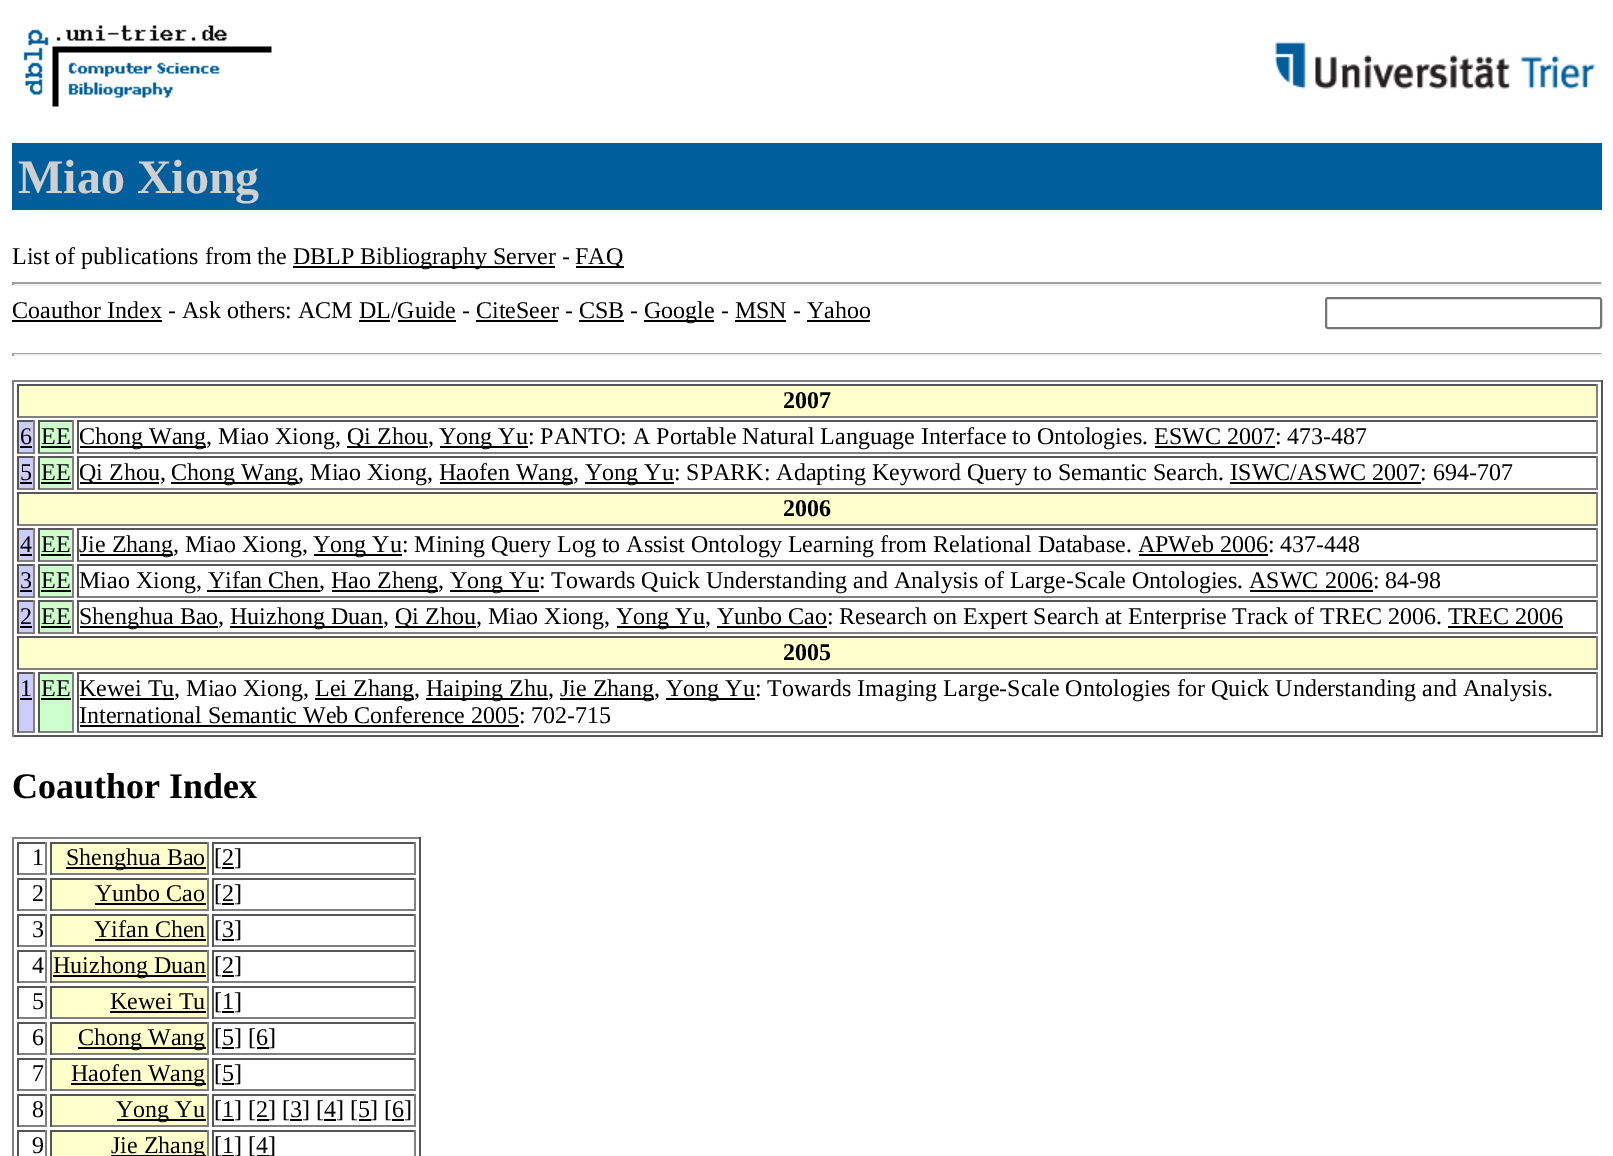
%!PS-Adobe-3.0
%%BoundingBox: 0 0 1613 1156
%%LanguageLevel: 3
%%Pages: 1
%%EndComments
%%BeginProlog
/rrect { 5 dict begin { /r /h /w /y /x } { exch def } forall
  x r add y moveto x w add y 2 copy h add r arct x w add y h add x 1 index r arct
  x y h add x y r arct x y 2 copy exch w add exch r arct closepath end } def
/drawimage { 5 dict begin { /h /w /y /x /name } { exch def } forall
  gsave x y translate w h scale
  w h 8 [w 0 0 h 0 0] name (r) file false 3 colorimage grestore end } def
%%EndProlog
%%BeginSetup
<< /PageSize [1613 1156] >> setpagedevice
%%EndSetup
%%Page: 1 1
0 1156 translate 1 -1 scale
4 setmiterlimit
1 setgray
0 0 1613 1156 rectfill
(images/1.raw) 23 25 249 82 drawimage
(images/2.raw) 1275 41 320 48 drawimage
0 0.369 0.612 setrgbcolor
12 143 1590 67 rectfill
0 setgray
293 266 262 2 rectfill
576 266 48 2 rectfill
0.624 setgray
12 282 1590 2 rectfill
0.933 setgray
1601 282 2 3 rectfill
12 284 1590 2 rectfill
0.624 setgray
12 282 2 3 rectfill
0 setgray
12 320 150 2 rectfill
644 320 70 2 rectfill
0.463 setgray
2 setlinewidth
1326 298 275 30 2 rrect stroke
0 setgray
359 320 31 2 rectfill
398 320 58 2 rectfill
476 320 82 2 rectfill
579 320 45 2 rectfill
735 320 51 2 rectfill
807 320 63 2 rectfill
0.624 setgray
12 353 1590 1 rectfill
0.933 setgray
1601 353 2 3 rectfill
12 354 1590 2 rectfill
0.624 setgray
12 353 2 3 rectfill
0.502 setgray
12 380 1590 2 rectfill
0.333 setgray
1601 380 2 357 rectfill
12 735 1590 2 rectfill
0.502 setgray
12 380 2 357 rectfill
1 1 0.8 setrgbcolor
19 386 1577 30 rectfill
0.333 setgray
17 384 1581 2 rectfill
0.502 setgray
1596 384 2 33 rectfill
17 416 1581 2 rectfill
0.333 setgray
17 384 2 33 rectfill
0.8 0.8 1 setrgbcolor
19 422 14 30 rectfill
0.333 setgray
17 420 18 2 rectfill
0.502 setgray
33 420 2 33 rectfill
17 452 18 2 rectfill
0.333 setgray
17 420 2 33 rectfill
0 setgray
20 446 12 2 rectfill
0.8 1 0.8 setrgbcolor
40 422 32 30 rectfill
0.333 setgray
38 420 36 2 rectfill
0.502 setgray
72 420 2 33 rectfill
38 452 36 2 rectfill
0.333 setgray
38 420 2 33 rectfill
0 setgray
41 446 30 2 rectfill
0.333 setgray
77 420 1521 2 rectfill
0.502 setgray
1596 420 2 33 rectfill
77 452 1521 2 rectfill
0.333 setgray
77 420 2 33 rectfill
0 setgray
80 446 126 2 rectfill
347 446 81 2 rectfill
440 446 88 2 rectfill
1155 446 120 2 rectfill
0.8 0.8 1 setrgbcolor
19 458 14 30 rectfill
0.333 setgray
17 456 18 2 rectfill
0.502 setgray
33 456 2 33 rectfill
17 488 18 2 rectfill
0.333 setgray
17 456 2 33 rectfill
0 setgray
20 482 12 2 rectfill
0.8 1 0.8 setrgbcolor
40 458 32 30 rectfill
0.333 setgray
38 456 36 2 rectfill
0.502 setgray
72 456 2 33 rectfill
38 488 36 2 rectfill
0.333 setgray
38 456 2 33 rectfill
0 setgray
41 482 30 2 rectfill
0.333 setgray
77 456 1521 2 rectfill
0.502 setgray
1596 456 2 33 rectfill
77 488 1521 2 rectfill
0.333 setgray
77 456 2 33 rectfill
0 setgray
80 482 79 2 rectfill
171 482 128 2 rectfill
440 482 133 2 rectfill
585 482 89 2 rectfill
1230 482 191 2 rectfill
1 1 0.8 setrgbcolor
19 494 1577 30 rectfill
0.333 setgray
17 492 1581 2 rectfill
0.502 setgray
1596 492 2 33 rectfill
17 524 1581 2 rectfill
0.333 setgray
17 492 2 33 rectfill
0.8 0.8 1 setrgbcolor
19 530 14 30 rectfill
0.333 setgray
17 528 18 2 rectfill
0.502 setgray
33 528 2 33 rectfill
17 560 18 2 rectfill
0.333 setgray
17 528 2 33 rectfill
0 setgray
20 554 12 2 rectfill
0.8 1 0.8 setrgbcolor
40 530 32 30 rectfill
0.333 setgray
38 528 36 2 rectfill
0.502 setgray
72 528 2 33 rectfill
38 560 36 2 rectfill
0.333 setgray
38 528 2 33 rectfill
0 setgray
41 554 30 2 rectfill
0.333 setgray
77 528 1521 2 rectfill
0.502 setgray
1596 528 2 33 rectfill
77 560 1521 2 rectfill
0.333 setgray
77 528 2 33 rectfill
0 setgray
80 554 93 2 rectfill
314 554 88 2 rectfill
1139 554 129 2 rectfill
0.8 0.8 1 setrgbcolor
19 566 14 30 rectfill
0.333 setgray
17 564 18 2 rectfill
0.502 setgray
33 564 2 33 rectfill
17 596 18 2 rectfill
0.333 setgray
17 564 2 33 rectfill
0 setgray
20 590 12 2 rectfill
0.8 1 0.8 setrgbcolor
40 566 32 30 rectfill
0.333 setgray
38 564 36 2 rectfill
0.502 setgray
72 564 2 33 rectfill
38 596 36 2 rectfill
0.333 setgray
38 564 2 33 rectfill
0 setgray
41 590 30 2 rectfill
0.333 setgray
77 564 1521 2 rectfill
0.502 setgray
1596 564 2 33 rectfill
77 596 1521 2 rectfill
0.333 setgray
77 564 2 33 rectfill
0 setgray
332 590 106 2 rectfill
450 590 89 2 rectfill
207 590 113 2 rectfill
1250 590 123 2 rectfill
0.8 0.8 1 setrgbcolor
19 602 14 30 rectfill
0.333 setgray
17 600 18 2 rectfill
0.502 setgray
33 600 2 33 rectfill
17 632 18 2 rectfill
0.333 setgray
17 600 2 33 rectfill
0 setgray
20 626 12 2 rectfill
0.8 1 0.8 setrgbcolor
40 602 32 30 rectfill
0.333 setgray
38 600 36 2 rectfill
0.502 setgray
72 600 2 33 rectfill
38 632 36 2 rectfill
0.333 setgray
38 600 2 33 rectfill
0 setgray
41 626 30 2 rectfill
0.333 setgray
77 600 1521 2 rectfill
0.502 setgray
1596 600 2 33 rectfill
77 632 1521 2 rectfill
0.333 setgray
77 600 2 33 rectfill
0 setgray
80 626 138 2 rectfill
230 626 153 2 rectfill
395 626 81 2 rectfill
617 626 88 2 rectfill
717 626 110 2 rectfill
1448 626 115 2 rectfill
1 1 0.8 setrgbcolor
19 638 1577 30 rectfill
0.333 setgray
17 636 1581 2 rectfill
0.502 setgray
1596 636 2 33 rectfill
17 668 1581 2 rectfill
0.333 setgray
17 636 2 33 rectfill
0.8 0.8 1 setrgbcolor
19 674 14 57 rectfill
0.333 setgray
17 672 18 2 rectfill
0.502 setgray
33 672 2 60 rectfill
17 731 18 2 rectfill
0.333 setgray
17 672 2 60 rectfill
0 setgray
20 698 12 2 rectfill
0.8 1 0.8 setrgbcolor
40 674 32 57 rectfill
0.333 setgray
38 672 36 2 rectfill
0.502 setgray
72 672 2 60 rectfill
38 731 36 2 rectfill
0.333 setgray
38 672 2 60 rectfill
0 setgray
41 698 30 2 rectfill
0.333 setgray
77 672 1521 2 rectfill
0.502 setgray
1596 672 2 60 rectfill
77 731 1521 2 rectfill
0.333 setgray
77 672 2 60 rectfill
0 setgray
80 698 94 2 rectfill
315 698 99 2 rectfill
426 698 122 2 rectfill
560 698 94 2 rectfill
666 698 89 2 rectfill
80 725 439 2 rectfill
0.502 setgray
12 837 408 2 rectfill
0.333 setgray
419 837 2 319 rectfill
0.502 setgray
12 837 2 319 rectfill
0.333 setgray
17 842 30 2 rectfill
0.502 setgray
45 842 2 33 rectfill
17 873 30 2 rectfill
0.333 setgray
17 842 2 33 rectfill
1 1 0.8 setrgbcolor
52 844 155 29 rectfill
0.333 setgray
50 842 159 2 rectfill
0.502 setgray
207 842 2 33 rectfill
50 873 159 2 rectfill
0.333 setgray
50 842 2 33 rectfill
0 setgray
66 867 140 2 rectfill
0.333 setgray
212 842 204 2 rectfill
0.502 setgray
414 842 2 33 rectfill
212 873 204 2 rectfill
0.333 setgray
212 842 2 33 rectfill
0 setgray
222 867 12 2 rectfill
0.333 setgray
17 878 30 2 rectfill
0.502 setgray
45 878 2 33 rectfill
17 909 30 2 rectfill
0.333 setgray
17 878 2 33 rectfill
1 1 0.8 setrgbcolor
52 880 155 29 rectfill
0.333 setgray
50 878 159 2 rectfill
0.502 setgray
207 878 2 33 rectfill
50 909 159 2 rectfill
0.333 setgray
50 878 2 33 rectfill
0 setgray
95 903 111 2 rectfill
0.333 setgray
212 878 204 2 rectfill
0.502 setgray
414 878 2 33 rectfill
212 909 204 2 rectfill
0.333 setgray
212 878 2 33 rectfill
0 setgray
222 903 12 2 rectfill
0.333 setgray
17 914 30 2 rectfill
0.502 setgray
45 914 2 33 rectfill
17 945 30 2 rectfill
0.333 setgray
17 914 2 33 rectfill
1 1 0.8 setrgbcolor
52 916 155 29 rectfill
0.333 setgray
50 914 159 2 rectfill
0.502 setgray
207 914 2 33 rectfill
50 945 159 2 rectfill
0.333 setgray
50 914 2 33 rectfill
0 setgray
95 939 111 2 rectfill
0.333 setgray
212 914 204 2 rectfill
0.502 setgray
414 914 2 33 rectfill
212 945 204 2 rectfill
0.333 setgray
212 914 2 33 rectfill
0 setgray
222 939 12 2 rectfill
0.333 setgray
17 950 30 2 rectfill
0.502 setgray
45 950 2 33 rectfill
17 981 30 2 rectfill
0.333 setgray
17 950 2 33 rectfill
1 1 0.8 setrgbcolor
52 952 155 29 rectfill
0.333 setgray
50 950 159 2 rectfill
0.502 setgray
207 950 2 33 rectfill
50 981 159 2 rectfill
0.333 setgray
50 950 2 33 rectfill
0 setgray
53 975 153 2 rectfill
0.333 setgray
212 950 204 2 rectfill
0.502 setgray
414 950 2 33 rectfill
212 981 204 2 rectfill
0.333 setgray
212 950 2 33 rectfill
0 setgray
222 975 12 2 rectfill
0.333 setgray
17 986 30 2 rectfill
0.502 setgray
45 986 2 33 rectfill
17 1017 30 2 rectfill
0.333 setgray
17 986 2 33 rectfill
1 1 0.8 setrgbcolor
52 988 155 29 rectfill
0.333 setgray
50 986 159 2 rectfill
0.502 setgray
207 986 2 33 rectfill
50 1017 159 2 rectfill
0.333 setgray
50 986 2 33 rectfill
0 setgray
110 1011 96 2 rectfill
0.333 setgray
212 986 204 2 rectfill
0.502 setgray
414 986 2 33 rectfill
212 1017 204 2 rectfill
0.333 setgray
212 986 2 33 rectfill
0 setgray
222 1011 12 2 rectfill
0.333 setgray
17 1022 30 2 rectfill
0.502 setgray
45 1022 2 33 rectfill
17 1053 30 2 rectfill
0.333 setgray
17 1022 2 33 rectfill
1 1 0.8 setrgbcolor
52 1024 155 29 rectfill
0.333 setgray
50 1022 159 2 rectfill
0.502 setgray
207 1022 2 33 rectfill
50 1053 159 2 rectfill
0.333 setgray
50 1022 2 33 rectfill
0 setgray
78 1047 128 2 rectfill
0.333 setgray
212 1022 204 2 rectfill
0.502 setgray
414 1022 2 33 rectfill
212 1053 204 2 rectfill
0.333 setgray
212 1022 2 33 rectfill
0 setgray
222 1047 12 2 rectfill
257 1047 12 2 rectfill
0.333 setgray
17 1058 30 2 rectfill
0.502 setgray
45 1058 2 33 rectfill
17 1089 30 2 rectfill
0.333 setgray
17 1058 2 33 rectfill
1 1 0.8 setrgbcolor
52 1060 155 29 rectfill
0.333 setgray
50 1058 159 2 rectfill
0.502 setgray
207 1058 2 33 rectfill
50 1089 159 2 rectfill
0.333 setgray
50 1058 2 33 rectfill
0 setgray
71 1083 135 2 rectfill
0.333 setgray
212 1058 204 2 rectfill
0.502 setgray
414 1058 2 33 rectfill
212 1089 204 2 rectfill
0.333 setgray
212 1058 2 33 rectfill
0 setgray
222 1083 12 2 rectfill
0.333 setgray
17 1094 30 2 rectfill
0.502 setgray
45 1094 2 33 rectfill
17 1125 30 2 rectfill
0.333 setgray
17 1094 2 33 rectfill
1 1 0.8 setrgbcolor
52 1096 155 29 rectfill
0.333 setgray
50 1094 159 2 rectfill
0.502 setgray
207 1094 2 33 rectfill
50 1125 159 2 rectfill
0.333 setgray
50 1094 2 33 rectfill
0 setgray
117 1119 89 2 rectfill
0.333 setgray
212 1094 204 2 rectfill
0.502 setgray
414 1094 2 33 rectfill
212 1125 204 2 rectfill
0.333 setgray
212 1094 2 33 rectfill
0 setgray
222 1119 12 2 rectfill
257 1119 12 2 rectfill
290 1119 12 2 rectfill
324 1119 12 2 rectfill
359 1119 12 2 rectfill
392 1119 12 2 rectfill
0.333 setgray
17 1130 30 2 rectfill
0.502 setgray
45 1130 2 26 rectfill
0.333 setgray
17 1130 2 26 rectfill
1 1 0.8 setrgbcolor
52 1132 155 24 rectfill
0.333 setgray
50 1130 159 2 rectfill
0.502 setgray
207 1130 2 26 rectfill
0.333 setgray
50 1130 2 26 rectfill
0 setgray
111 1155 95 1 rectfill
0.333 setgray
212 1130 204 2 rectfill
0.502 setgray
414 1130 2 26 rectfill
0.333 setgray
212 1130 2 26 rectfill
0 setgray
222 1155 12 1 rectfill
257 1155 12 1 rectfill
/LiberationSerif-Bold [48 0 0 -48 0 0] selectfont
0.816 setgray
18 193 moveto (Miao Xiong) show
/LiberationSerif-Regular [24 0 0 -24 0 0] selectfont
0 setgray
12 264 moveto (List of publications from the) show
293 264 moveto (DBLP Bibliography Server -) show
575 264 moveto (FAQ) show
12 318 moveto (Coauthor Index - Ask others: ACM DL/Guide - CiteSeer - CSB -) show
644 318 moveto (Google - MSN - Yahoo) show
/LiberationSerif-Bold [24 0 0 -24 0 0] selectfont
783 408 moveto (2007) show
/LiberationSerif-Regular [24 0 0 -24 0 0] selectfont
20 444 moveto (6) show
41 444 moveto (EE) show
79 444 moveto (Chong Wang, Miao Xiong,) show
347 444 moveto (Qi Zhou,) show
439 444 moveto (Yong Yu: PANTO: A Portable Natural Language Interface to Ontologies. ESWC 2007: 473-487) show
20 480 moveto (5) show
41 480 moveto (EE) show
79 480 moveto (Qi Zhou,) show
171 480 moveto (Chong Wang, Miao Xiong,) show
439 480 moveto (Haofen Wang,) show
585 480 moveto (Yong Yu: SPARK: Adapting Keyword Query to Semantic Search. ISWC/ASWC 2007: 694-707) show
/LiberationSerif-Bold [24 0 0 -24 0 0] selectfont
783 516 moveto (2006) show
/LiberationSerif-Regular [24 0 0 -24 0 0] selectfont
20 552 moveto (4) show
41 552 moveto (EE) show
79 552 moveto (Jie Zhang, Miao Xiong,) show
313 552 moveto (Yong Yu: Mining Query Log to Assist Ontology Learning from Relational Database. APWeb 2006: 437-448) show
20 588 moveto (3) show
41 588 moveto (EE) show
79 588 moveto (Miao Xiong, Yifan Chen) show
319 588 moveto (,) show
331 588 moveto (Hao Zheng,) show
450 588 moveto (Yong Yu: Towards Quick Understanding and Analysis of Large-Scale Ontologies. ASWC 2006: 84-98) show
20 624 moveto (2) show
41 624 moveto (EE) show
79 624 moveto (Shenghua Bao,) show
230 624 moveto (Huizhong Duan,) show
395 624 moveto (Qi Zhou, Miao Xiong,) show
616 624 moveto (Yong Yu, Yunbo Cao: Research on Expert Search at Enterprise Track of TREC 2006. TREC 2006) show
/LiberationSerif-Bold [24 0 0 -24 0 0] selectfont
783 660 moveto (2005) show
/LiberationSerif-Regular [24 0 0 -24 0 0] selectfont
20 696 moveto (1) show
41 696 moveto (EE) show
79 696 moveto (Kewei Tu, Miao Xiong,) show
315 696 moveto (Lei Zhang,) show
426 696 moveto (Haiping Zhu,) show
560 696 moveto (Jie Zhang,) show
666 696 moveto (Yong Yu: Towards Imaging Large-Scale Ontologies for Quick Understanding and Analysis.) show
79 723 moveto (International Semantic Web Conference 2005: 702-715) show
/LiberationSerif-Bold [36 0 0 -36 0 0] selectfont
12 798 moveto (Coauthor Index) show
/LiberationSerif-Regular [24 0 0 -24 0 0] selectfont
32 865 moveto (1) show
66 865 moveto (Shenghua Bao) show
214 865 moveto ([2]) show
32 901 moveto (2) show
95 901 moveto (Yunbo Cao) show
214 901 moveto ([2]) show
32 937 moveto (3) show
94 937 moveto (Yifan Chen) show
214 937 moveto ([3]) show
32 973 moveto (4) show
53 973 moveto (Huizhong Duan) show
214 973 moveto ([2]) show
32 1009 moveto (5) show
110 1009 moveto (Kewei Tu) show
214 1009 moveto ([1]) show
32 1045 moveto (6) show
78 1045 moveto (Chong Wang) show
214 1045 moveto ([5] [6) show
268 1045 moveto (]) show
32 1081 moveto (7) show
71 1081 moveto (Haofen Wang) show
214 1081 moveto ([5]) show
32 1117 moveto (8) show
116 1117 moveto (Yong Yu) show
214 1117 moveto ([1] [2) show
268 1117 moveto (] [3] [4] [5) show
370 1117 moveto (] [6]) show
32 1153 moveto (9) show
111 1153 moveto (Jie Zhang) show
214 1153 moveto ([1] [4) show
268 1153 moveto (]) show
showpage
%%EOF
